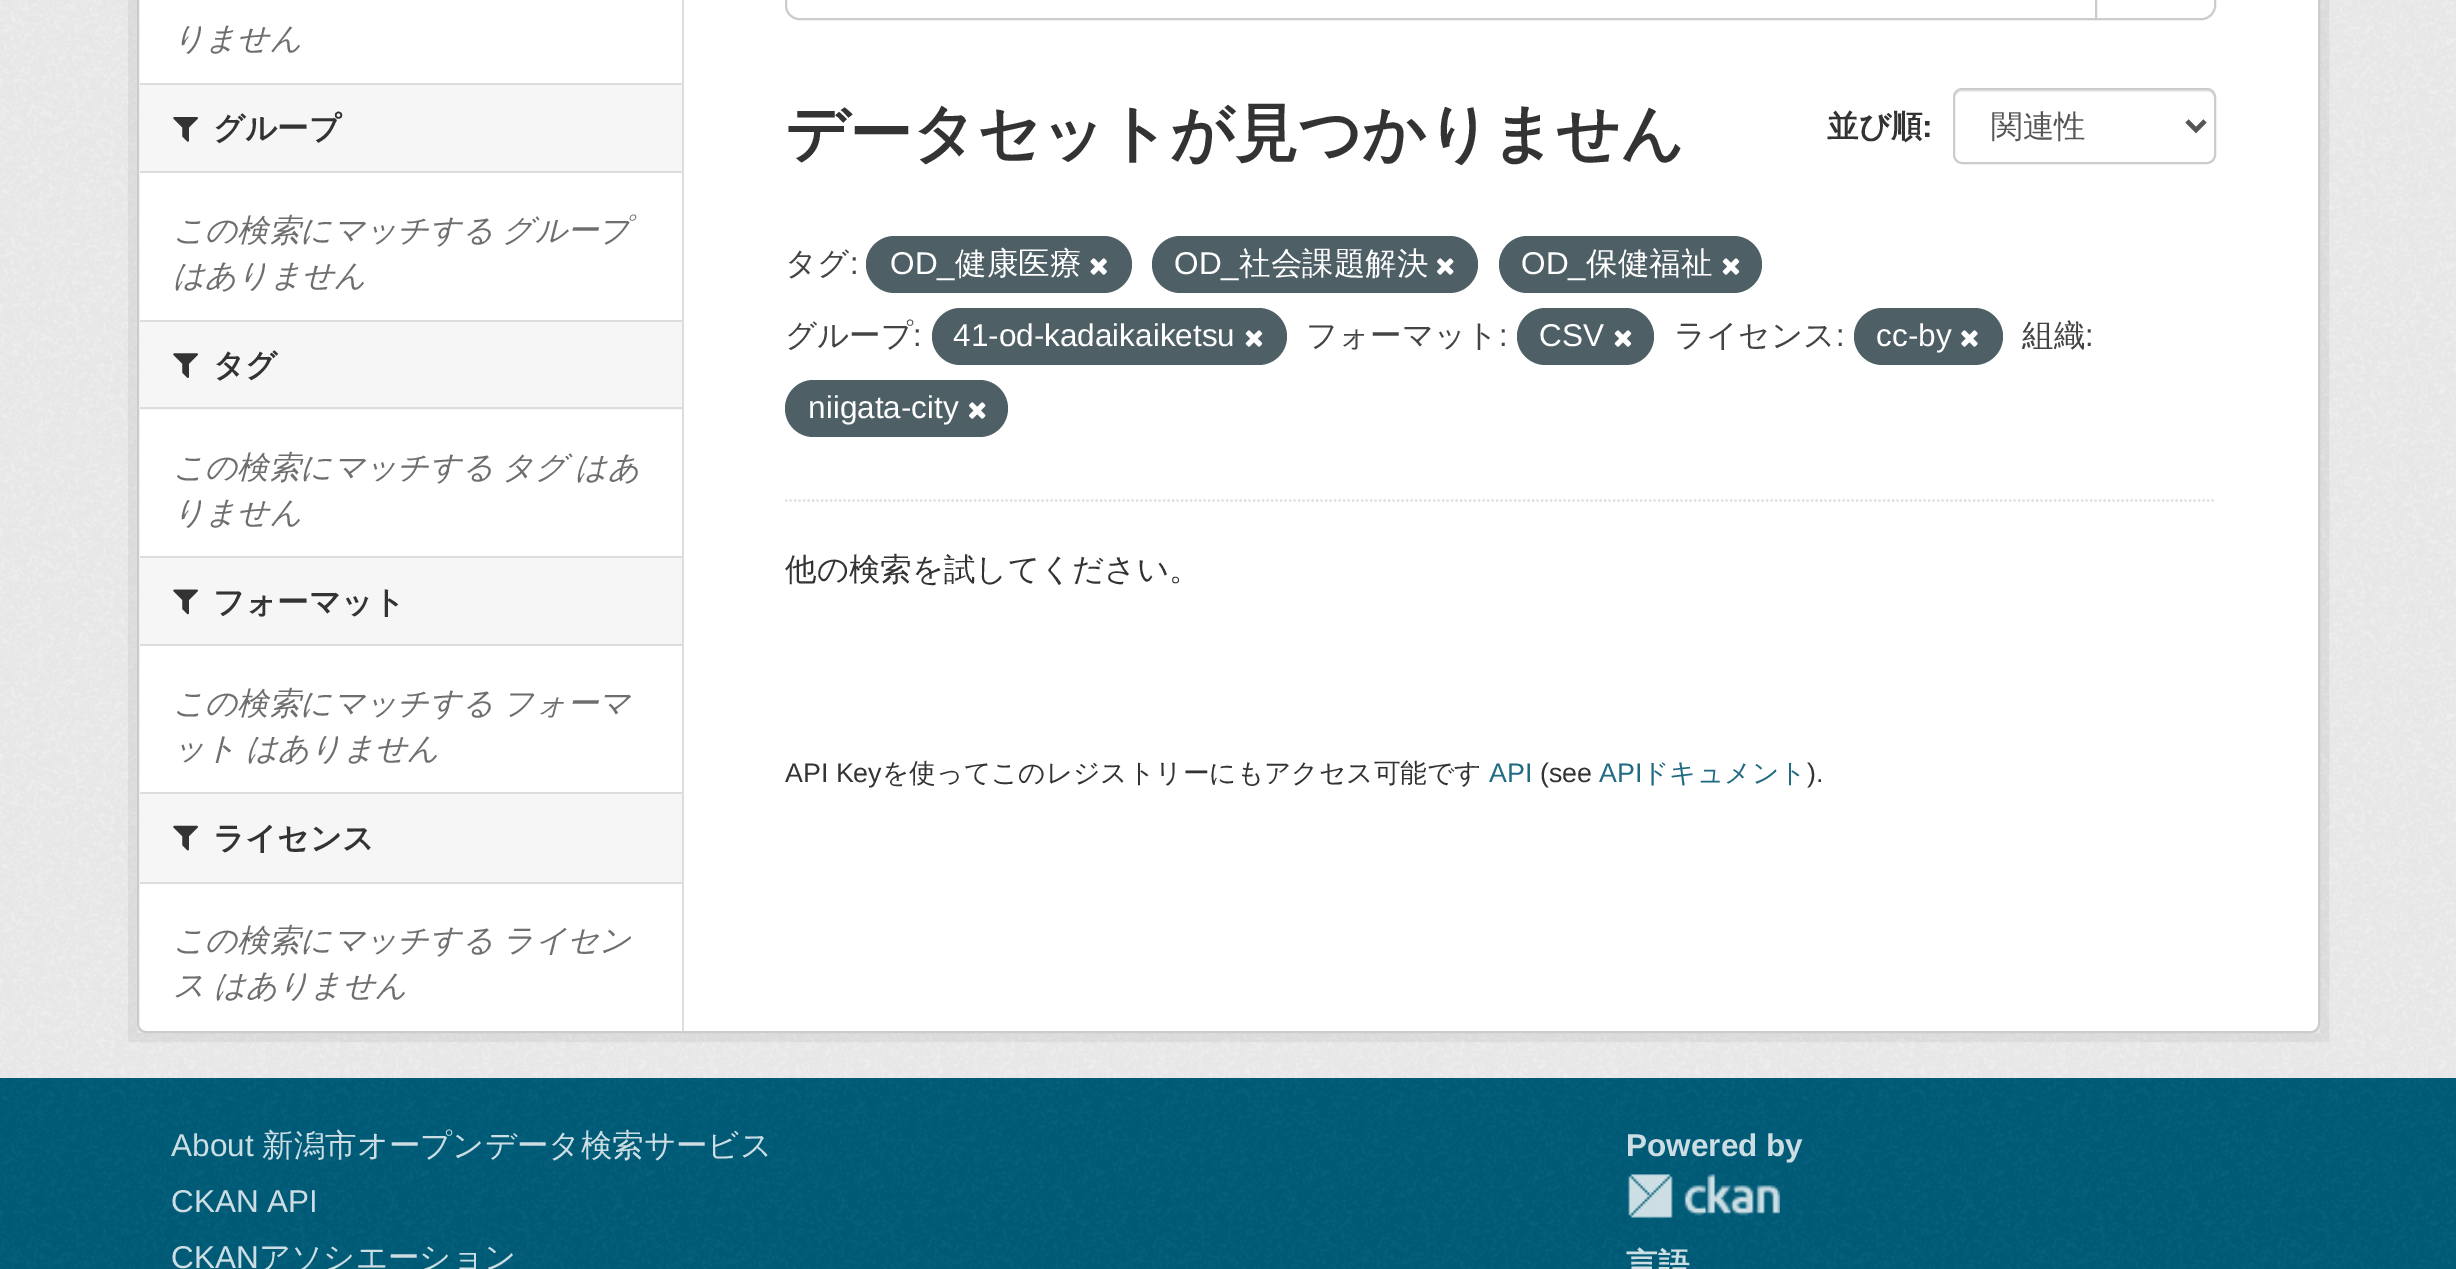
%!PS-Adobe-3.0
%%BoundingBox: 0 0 2456 1269
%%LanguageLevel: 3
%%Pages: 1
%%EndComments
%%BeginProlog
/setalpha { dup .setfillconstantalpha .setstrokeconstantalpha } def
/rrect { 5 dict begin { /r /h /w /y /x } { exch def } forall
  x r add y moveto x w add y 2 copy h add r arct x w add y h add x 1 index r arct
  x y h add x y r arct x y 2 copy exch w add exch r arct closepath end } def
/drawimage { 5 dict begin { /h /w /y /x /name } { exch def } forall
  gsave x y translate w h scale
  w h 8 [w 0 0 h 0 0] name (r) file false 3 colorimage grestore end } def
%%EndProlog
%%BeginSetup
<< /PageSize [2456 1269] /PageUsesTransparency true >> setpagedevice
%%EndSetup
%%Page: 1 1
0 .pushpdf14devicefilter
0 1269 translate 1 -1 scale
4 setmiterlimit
0 0.365 0.478 setrgbcolor
0 0 2456 1269 rectfill
0.933 setgray
0 0 2456 1078 rectfill
(images/1.raw) 0 0 2456 1078 drawimage
0.05 setalpha
0 setgray
9 setlinewidth
132.5 -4.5 2192 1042 rectstroke
1 setalpha
1 setgray
138 -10 2181 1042 8 rrect gsave fill grestore
0.8 setgray
2 setlinewidth
stroke
0.965 setgray
140 85 542 86 rectfill
0.867 setgray
140 83 542 2 rectfill
140 171 542 2 rectfill
(images/2.raw) 173 117 25 25 drawimage
0.965 setgray
140 322 542 88 rectfill
0.867 setgray
140 320 542 2 rectfill
140 407 542 2 rectfill
(images/3.raw) 173 353 25 25 drawimage
0.965 setgray
140 558 542 86 rectfill
0.867 setgray
140 556 542 2 rectfill
140 644 542 2 rectfill
(images/4.raw) 173 589 25 26 drawimage
0.965 setgray
140 794 542 88 rectfill
0.867 setgray
140 792 542 2 rectfill
140 882 542 2 rectfill
(images/5.raw) 173 825 25 26 drawimage
682 0 2 1031 rectfill
2.2 setlinewidth
[2.25 2.25] 0 setdash
newpath 785 500.5 moveto 2216 500.5 lineto stroke
0.8 setgray
2 setlinewidth
[] 0 setdash
newpath 799 -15 moveto 2096 -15 lineto 2096 19 lineto 799 19 lineto 792 19 786 13 786 6 curveto 786 -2 lineto 786 -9 792 -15 799 -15 curveto closepath stroke
1 setgray
newpath 2096 -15 moveto 2202 -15 lineto 2209 -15 2215 -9 2215 -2 curveto 2215 6 lineto 2215 13 2209 19 2202 19 curveto 2096 19 lineto closepath gsave fill grestore
0.8 setgray
stroke
0.925 setgray
newpath 1962 92 moveto 2207 92 lineto 2211 92 2214 95 2214 99 curveto 2214 97 lineto 2214 93 2211 90 2207 90 curveto 1962 90 lineto 1958 90 1955 93 1955 97 curveto 1955 99 lineto 1955 95 1958 92 1962 92 curveto closepath fill
0.8 setgray
1954 89 261 74 8 rrect stroke
0.333 setgray
4.5 setlinewidth
newpath 2187 121 moveto 2196 130 lineto 2205 121 lineto stroke
0.306 0.373 0.396 setrgbcolor
866 236 266 57 28.5 rrect fill
(images/6.raw) 1090 258 17 17 drawimage
1152 236 326 57 28.5 rrect fill
(images/7.raw) 1437 258 17 17 drawimage
1499 236 263 57 28.5 rrect fill
(images/8.raw) 1722 258 18 17 drawimage
932 308 355 57 28.5 rrect fill
(images/8.raw) 1245 330 18 17 drawimage
1517 308 137 57 28.5 rrect fill
(images/8.raw) 1614 330 18 17 drawimage
1854 308 149 57 28.5 rrect fill
(images/9.raw) 1961 330 17 17 drawimage
785 380 223 57 28.5 rrect fill
(images/7.raw) 969 402 17 17 drawimage
(images/10.raw) 0 1078 2456 191 drawimage
(images/11.raw) 1628 1174 152 44 drawimage
/WenQuanYiZenHei-MediumItalic [31.5 0 0 -31.5 0 0] selectfont
0.431 setgray
173 49 moveto (りません) show
/WenQuanYiZenHei-Bold [31.5 0 0 -31.5 0 0] selectfont
0.2 setgray
213 139 moveto (グループ) show
/WenQuanYiZenHei-MediumItalic [31.5 0 0 -31.5 0 0] selectfont
0.431 setgray
173 241 moveto -1 0 32 (この検索にマッチする グループ) widthshow
173 286 moveto (はありません) show
/WenQuanYiZenHei-Bold [31.5 0 0 -31.5 0 0] selectfont
0.2 setgray
213 376 moveto (タグ) show
/WenQuanYiZenHei-MediumItalic [31.5 0 0 -31.5 0 0] selectfont
0.431 setgray
173 478 moveto -1 0 32 (この検索にマッチする タグ はあ) widthshow
173 523 moveto (りません) show
/WenQuanYiZenHei-Bold [31.5 0 0 -31.5 0 0] selectfont
0.2 setgray
213 613 moveto (フォーマット) show
/WenQuanYiZenHei-MediumItalic [31.5 0 0 -31.5 0 0] selectfont
0.431 setgray
173 714 moveto -1 0 32 (この検索にマッチする フォーマ) widthshow
173 759 moveto -1 0 32 (ット はありません) widthshow
/WenQuanYiZenHei-Bold [31.5 0 0 -31.5 0 0] selectfont
0.2 setgray
213 849 moveto (ライセンス) show
/WenQuanYiZenHei-MediumItalic [31.5 0 0 -31.5 0 0] selectfont
0.431 setgray
173 951 moveto -1 0 32 (この検索にマッチする ライセン) widthshow
173 996 moveto -1 0 32 (ス はありません) widthshow
/WenQuanYiZenHei-Bold [63 0 0 -63 0 0] selectfont
0.2 setgray
785 155 moveto (データセットが見つかりません) show
/WenQuanYiZenHei-Bold [31.5 0 0 -31.5 0 0] selectfont
1827 137 moveto (並び順) show
/LiberationSans-Bold [31.5 0 0 -31.5 0 0] selectfont
1922 137 moveto (:) show
/WenQuanYiZenHei-Medium [31.5 0 0 -31.5 0 0] selectfont
0.333 setgray
1991 137 moveto (関連性) show
0.267 setgray
785 274 moveto (タグ) show
/LiberationSans-Regular [31.5 0 0 -31.5 0 0] selectfont
850 274 moveto (:) show
1 setgray
890 274 moveto (OD_) show
/WenQuanYiZenHei-Medium [31.5 0 0 -31.5 0 0] selectfont
955 274 moveto (健康医療) show
/LiberationSans-Regular [31.5 0 0 -31.5 0 0] selectfont
1174 274 moveto (OD_) show
/WenQuanYiZenHei-Medium [31.5 0 0 -31.5 0 0] selectfont
1239 274 moveto (社会課題解決) show
/LiberationSans-Regular [31.5 0 0 -31.5 0 0] selectfont
1521 274 moveto (OD_) show
/WenQuanYiZenHei-Medium [31.5 0 0 -31.5 0 0] selectfont
1586 274 moveto (保健福祉) show
0.267 setgray
785 346 moveto (グループ) show
/LiberationSans-Regular [31.5 0 0 -31.5 0 0] selectfont
913 346 moveto (:) show
1 setgray
953 346 moveto (41-od-kadaikaiketsu) show
/WenQuanYiZenHei-Medium [31.5 0 0 -31.5 0 0] selectfont
0.267 setgray
1306 346 moveto (フォーマット) show
/LiberationSans-Regular [31.5 0 0 -31.5 0 0] selectfont
1499 346 moveto (:) show
1 setgray
1539 346 moveto (CSV) show
/WenQuanYiZenHei-Medium [31.5 0 0 -31.5 0 0] selectfont
0.267 setgray
1674 346 moveto (ライセンス) show
/LiberationSans-Regular [31.5 0 0 -31.5 0 0] selectfont
1836 346 moveto (:) show
1 setgray
1876 346 moveto (cc-by) show
/WenQuanYiZenHei-Medium [31.5 0 0 -31.5 0 0] selectfont
0.267 setgray
2022 346 moveto (組織) show
/LiberationSans-Regular [31.5 0 0 -31.5 0 0] selectfont
2085 346 moveto (:) show
1 setgray
808 418 moveto (niigata-city) show
/WenQuanYiZenHei-Medium [31.5 0 0 -31.5 0 0] selectfont
0.2 setgray
785 580 moveto (他の検索を試してください。) show
/LiberationSans-Regular [26.75 0 0 -26.75 0 0] selectfont
785 782 moveto (API Key) show
/WenQuanYiZenHei-Medium [26.75 0 0 -26.75 0 0] selectfont
882 782 moveto (を使ってこのレジストリーにもアクセス可能です) show
/LiberationSans-Regular [26.75 0 0 -26.75 0 0] selectfont
0.125 0.42 0.51 setrgbcolor
1489 782 moveto (API) show
0.2 setgray
1540 782 moveto (\(see) show
0.125 0.42 0.51 setrgbcolor
1599 782 moveto (API) show
/WenQuanYiZenHei-Medium [26.75 0 0 -26.75 0 0] selectfont
1642 782 moveto (ドキュメント) show
/LiberationSans-Regular [26.75 0 0 -26.75 0 0] selectfont
0.2 setgray
1807 782 moveto (\).) show
/LiberationSans-Regular [31.5 0 0 -31.5 0 0] selectfont
0.8 0.871 0.89 setrgbcolor
171 1156 moveto (About) show
/WenQuanYiZenHei-Medium [31.5 0 0 -31.5 0 0] selectfont
262 1156 moveto (新潟市オープンデータ検索サービス) show
/LiberationSans-Regular [31.5 0 0 -31.5 0 0] selectfont
171 1212 moveto (CKAN API) show
171 1268 moveto (CKAN) show
/WenQuanYiZenHei-Medium [31.5 0 0 -31.5 0 0] selectfont
259 1268 moveto (アソシエーション) show
/LiberationSans-Bold [31.5 0 0 -31.5 0 0] selectfont
1626 1156 moveto (Powered by) show
/WenQuanYiZenHei-Bold [31.5 0 0 -31.5 0 0] selectfont
1626 1275 moveto (言語) show
.poppdf14devicefilter showpage
%%EOF
